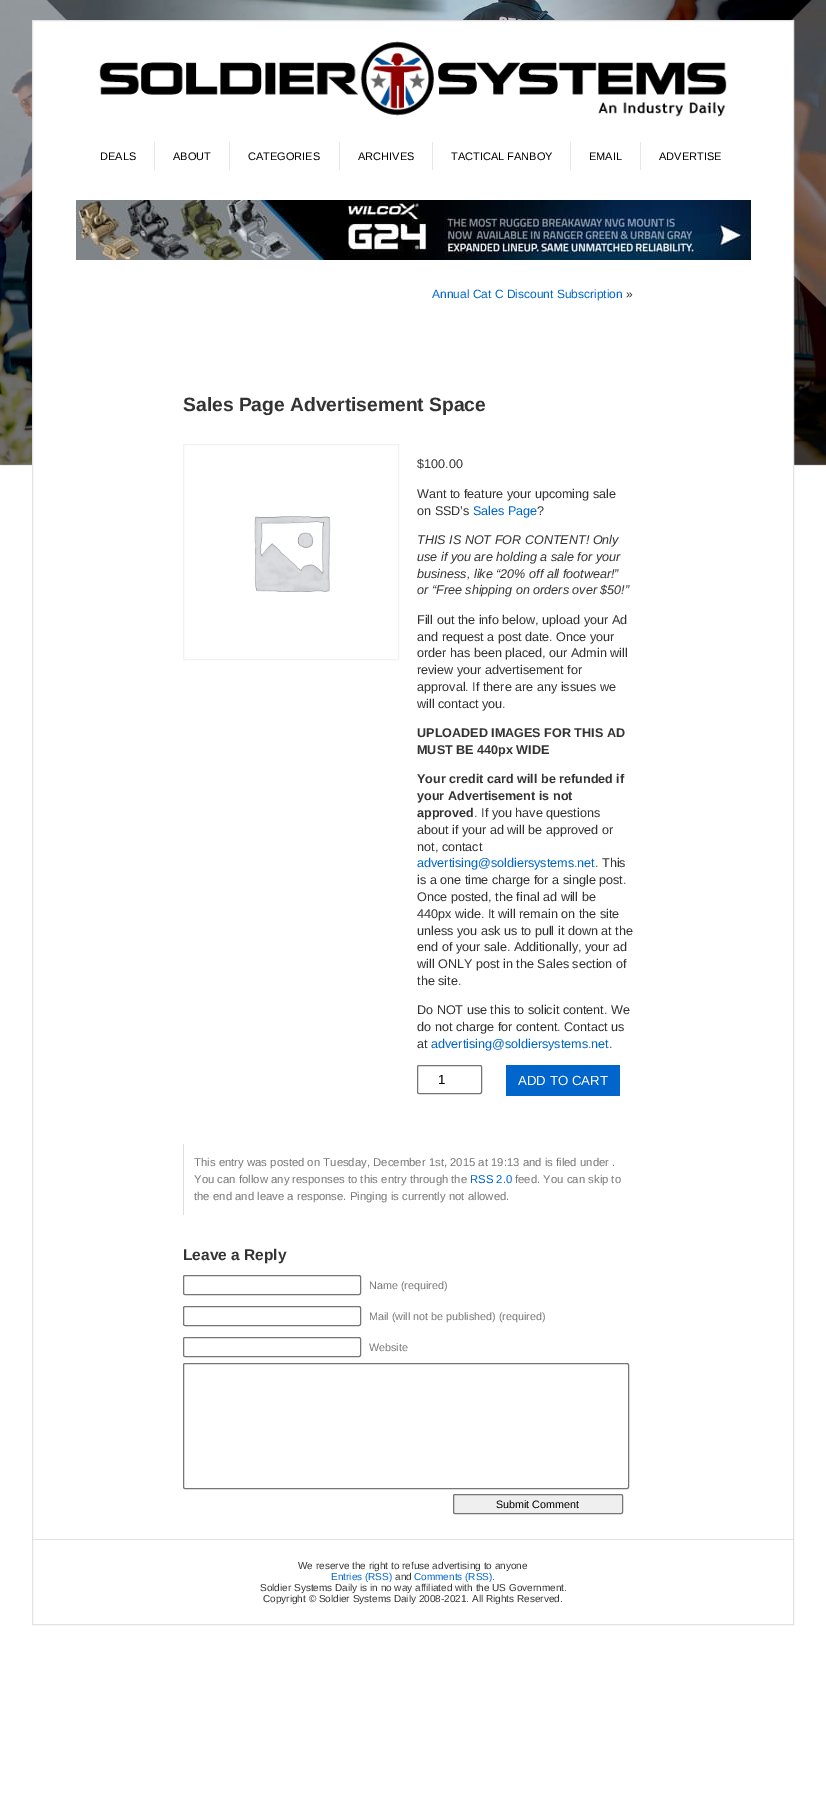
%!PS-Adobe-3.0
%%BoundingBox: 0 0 826 1797
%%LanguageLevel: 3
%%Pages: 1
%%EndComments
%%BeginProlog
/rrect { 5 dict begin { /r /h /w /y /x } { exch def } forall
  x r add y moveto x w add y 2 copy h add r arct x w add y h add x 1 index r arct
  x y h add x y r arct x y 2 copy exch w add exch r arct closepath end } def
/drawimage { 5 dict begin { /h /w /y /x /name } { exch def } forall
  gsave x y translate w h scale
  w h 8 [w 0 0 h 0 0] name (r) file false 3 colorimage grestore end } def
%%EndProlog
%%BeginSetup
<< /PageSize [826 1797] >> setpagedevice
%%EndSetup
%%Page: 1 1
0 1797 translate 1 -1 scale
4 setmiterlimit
1 setgray
0 0 826 1797 rectfill
(images/1.raw) 0 0 826 466 drawimage
33 21 760 445 rectfill
0.886 setgray
32.5 20.5 761 1604 rectstroke
(images/2.raw) 99 41 628 76 drawimage
0.906 setgray
154 142 1 28 rectfill
229 142 1 28 rectfill
339 142 1 28 rectfill
432 142 1 28 rectfill
570 142 1 28 rectfill
640 142 1 28 rectfill
(images/3.raw) 76 200 675 60 drawimage
0.949 setgray
183.5 444.5 215 215 rectstroke
(images/4.raw) 254 516 77 76 drawimage
0.463 setgray
417.5 1065.5 64 28 1.5 rrect stroke
0 0.4 0.8 setrgbcolor
506 1065 114 31 rectfill
0.867 setgray
183 1144 1 71 rectfill
0.463 setgray
183.5 1275.5 177 19 1.5 rrect stroke
183.5 1306.5 177 19 1.5 rrect stroke
183.5 1337.5 177 19 1.5 rrect stroke
183.5 1363.5 445 125 1.5 rrect stroke
0.937 setgray
453.5 1494.5 169 19 1.5 rrect gsave fill grestore
0.463 setgray
stroke
0.886 setgray
33 1539 760 1 rectfill
/LiberationSans-Regular [11 0 0 -11 0 0] selectfont
0 setgray
100 160 moveto (DEALS) show
173 160 moveto (ABOUT) show
248 160 moveto (CATEGORIES) show
358 160 moveto (ARCHIVES) show
451 160 moveto (TACTICAL FANBOY) show
589 160 moveto (EMAIL) show
659 160 moveto (ADVERTISE) show
/LiberationSans-Regular [12 0 0 -12 0 0] selectfont
0 0.4 0.8 setrgbcolor
432 298 moveto (Annual Cat C Discount Subscription) show
0.2 setgray
626 298 moveto (») show
/LiberationSans-Bold [19.25 0 0 -19.25 0 0] selectfont
183 411 moveto (Sales Page Advertisement Space) show
/LiberationSans-Regular [12.6 0 0 -12.6 0 0] selectfont
417 468 moveto ($100.00) show
417 498 moveto (Want to feature your upcoming sale) show
417 515 moveto (on SSD’s) show
0 0.4 0.8 setrgbcolor
473 515 moveto (Sales Page) show
0.2 setgray
537 515 moveto (?) show
/LiberationSans-Italic [12.6 0 0 -12.6 0 0] selectfont
417 544 moveto (THIS IS NOT FOR CONTENT! Only) show
417 561 moveto (use if you are holding a sale for your) show
417 578 moveto (business, like “20% off all footwear!”) show
417 594 moveto (or “Free shipping on orders over $50!”) show
/LiberationSans-Regular [12.6 0 0 -12.6 0 0] selectfont
417 624 moveto (Fill out the info below, upload your Ad) show
417 641 moveto (and request a post date. Once your) show
417 657 moveto (order has been placed, our Admin will) show
417 674 moveto (review your advertisement for) show
417 691 moveto (approval. If there are any issues we) show
417 708 moveto (will contact you.) show
/LiberationSans-Bold [12.6 0 0 -12.6 0 0] selectfont
417 737 moveto (UPLOADED IMAGES FOR THIS AD) show
417 754 moveto (MUST BE 440px WIDE) show
417 783 moveto (Your credit card will be refunded if) show
417 800 moveto (your Advertisement is not) show
417 817 moveto (approved) show
/LiberationSans-Regular [12.6 0 0 -12.6 0 0] selectfont
474 817 moveto (. If you have questions) show
417 834 moveto (about if your ad will be approved or) show
417 851 moveto (not, contact) show
0 0.4 0.8 setrgbcolor
417 867 moveto (advertising@soldiersystems.net) show
0.2 setgray
595 867 moveto (. This) show
417 884 moveto (is a one time charge for a single post.) show
417 901 moveto (Once posted, the final ad will be) show
417 918 moveto (440px wide. It will remain on the site) show
417 935 moveto (unless you ask us to pull it down at the) show
417 951 moveto (end of your sale. Additionally, your ad) show
417 968 moveto (will ONLY post in the Sales section of) show
417 985 moveto (the site.) show
417 1014 moveto (Do NOT use this to solicit content. We) show
417 1031 moveto (do not charge for content. Contact us) show
417 1048 moveto (at) show
0 0.4 0.8 setrgbcolor
431 1048 moveto (advertising@soldiersystems.net) show
0.2 setgray
609 1048 moveto (.) show
/LiberationSans-Regular [13.25 0 0 -13.25 0 0] selectfont
0 setgray
438 1084 moveto (1) show
1 setgray
518 1085 moveto (ADD TO CART) show
/LiberationSans-Regular [11.35 0 0 -11.35 0 0] selectfont
0.467 setgray
194 1166 moveto (This entry was posted on Tuesday, December 1st, 2015 at 19:13 and is filed under .) show
194 1183 moveto (You can follow any responses to this entry through the) show
0 0.4 0.8 setrgbcolor
470 1183 moveto (RSS 2.0) show
0.467 setgray
515 1183 moveto (feed. You can skip to) show
194 1200 moveto (the end and leave a response. Pinging is currently not allowed.) show
/LiberationSans-Bold [15.5 0 0 -15.5 0 0] selectfont
0.2 setgray
183 1260 moveto (Leave a Reply) show
/LiberationSans-Regular [10.75 0 0 -10.75 0 0] selectfont
0.467 setgray
369 1289 moveto (Name \(required\)) show
369 1320 moveto (Mail \(will not be published\) \(required\)) show
369 1351 moveto (Website) show
0 setgray
496 1508 moveto (Submit Comment) show
/LiberationSans-Regular [10 0 0 -10 0 0] selectfont
0.2 setgray
298 1569 moveto (We reserve the right to refuse advertising to anyone) show
0 0.4 0.8 setrgbcolor
331 1580 moveto (Entries \(RSS\)) show
0.2 setgray
395 1580 moveto (and) show
0 0.4 0.8 setrgbcolor
414 1580 moveto (Comments \(RSS\)) show
0.2 setgray
492 1580 moveto (.) show
260 1591 moveto (Soldier Systems Daily is in no way affiliated with the US Government.) show
263 1602 moveto (Copyright © Soldier Systems Daily 2008-2021. All Rights Reserved.) show
showpage
%%EOF
